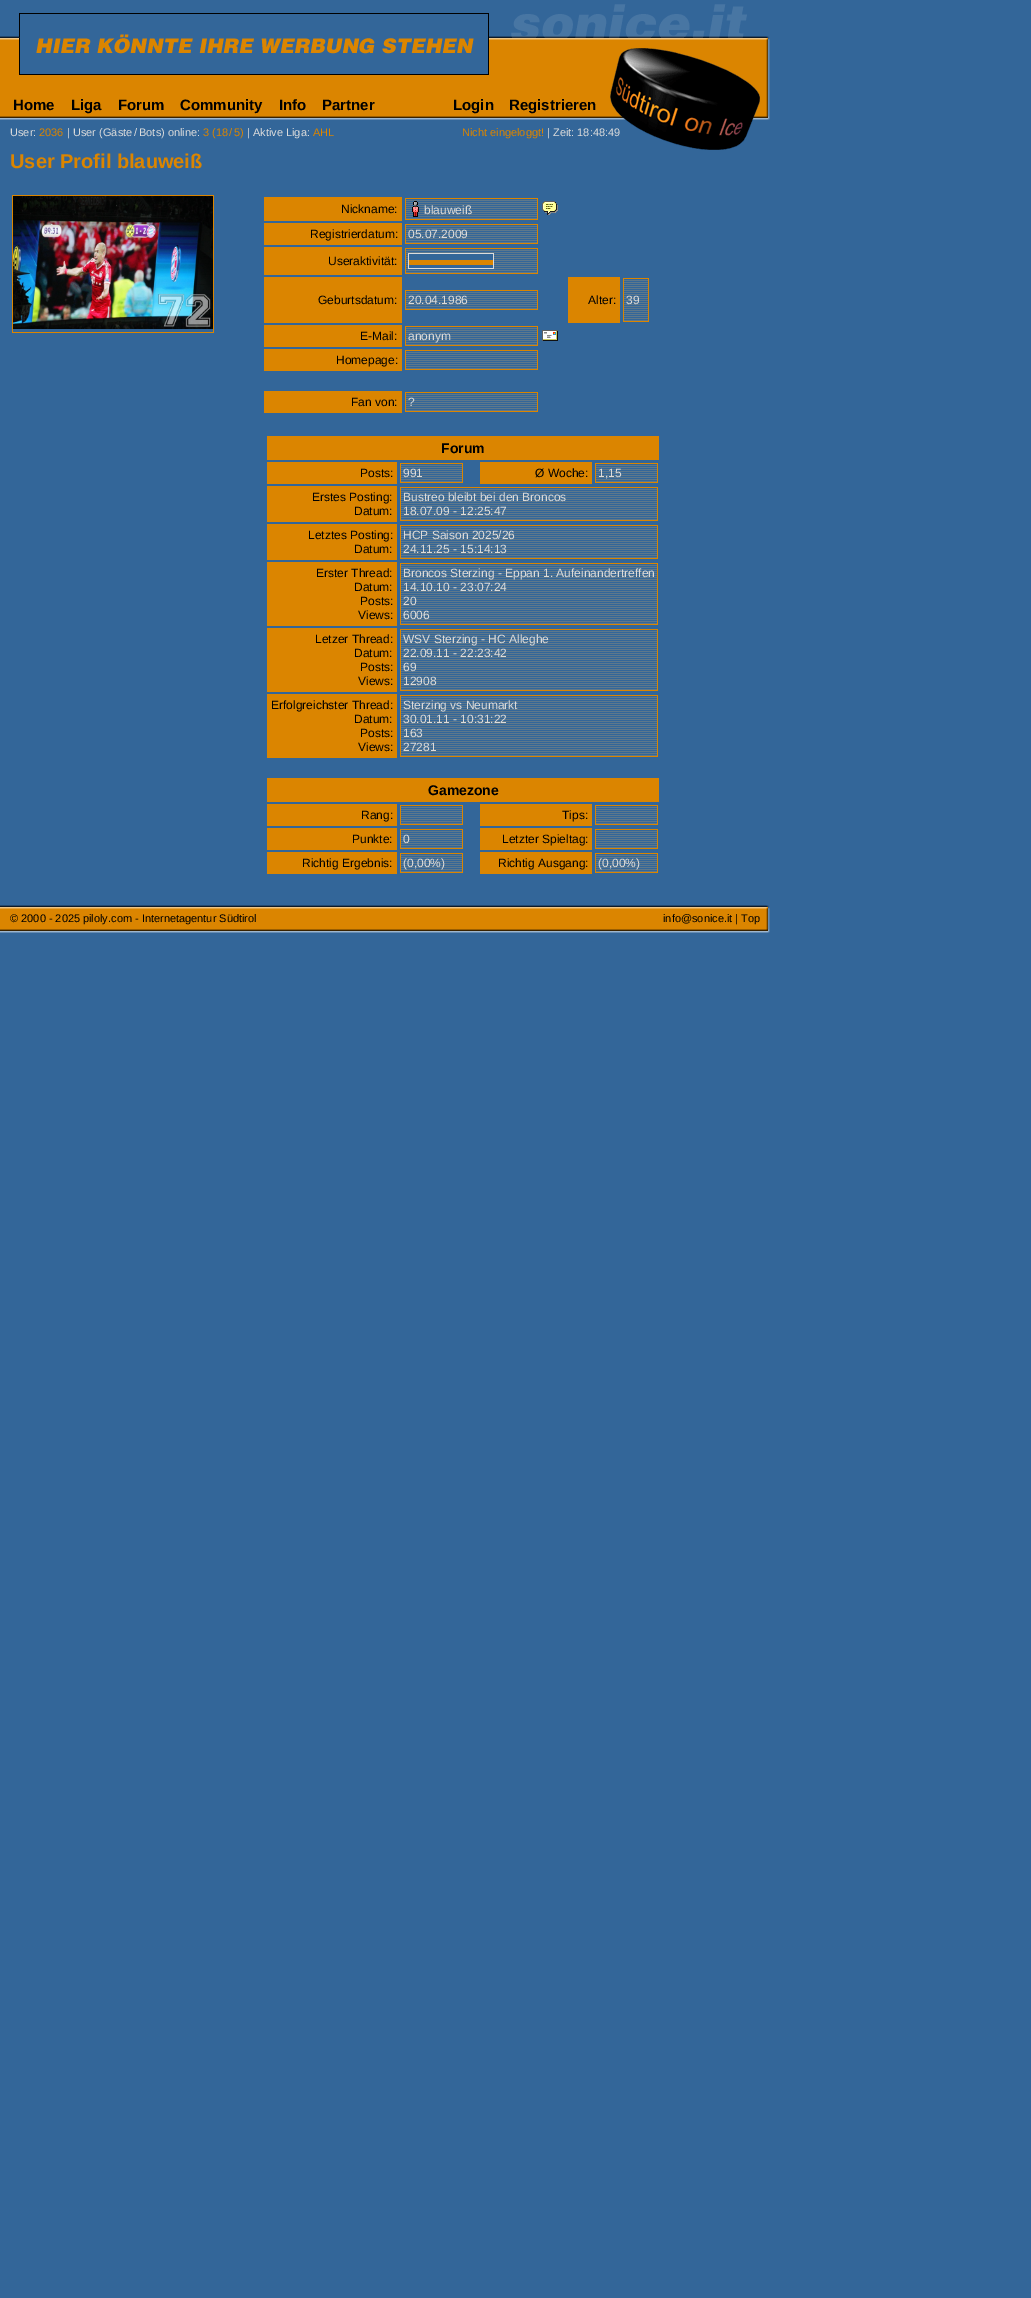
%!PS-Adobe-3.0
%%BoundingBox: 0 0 1031 2298
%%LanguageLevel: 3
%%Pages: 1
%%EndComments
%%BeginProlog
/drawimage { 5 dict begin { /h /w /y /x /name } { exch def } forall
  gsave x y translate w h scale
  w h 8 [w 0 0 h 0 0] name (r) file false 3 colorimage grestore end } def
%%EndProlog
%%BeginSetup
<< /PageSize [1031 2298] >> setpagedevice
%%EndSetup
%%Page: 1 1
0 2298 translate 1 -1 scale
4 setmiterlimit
0.2 0.4 0.6 setrgbcolor
0 0 1031 2298 rectfill
(images/1.raw) 0 4 770 146 drawimage
0.859 0.522 0 setrgbcolor
12 195 202 138 rectfill
0.2 0.4 0.6 setrgbcolor
13 329 200 3 rectfill
(images/2.raw) 13 196 200 133 drawimage
0.859 0.522 0 setrgbcolor
264 197 138 24 rectfill
405 198 133 22 rectfill
(images/3.raw) 406 199 131 20 drawimage
(images/4.raw) 412 201 7 16 drawimage
(images/5.raw) 542 201 16 14 drawimage
264 223 138 22 rectfill
405 224 133 20 rectfill
(images/6.raw) 406 225 131 18 drawimage
264 247 138 28 rectfill
405 248 133 26 rectfill
(images/7.raw) 406 249 131 24 drawimage
0.863 setgray
408 253 86 16 rectfill
0.2 0.4 0.6 setrgbcolor
409 254 84 14 rectfill
0.859 0.522 0 setrgbcolor
409 260 84 5 rectfill
264 277 138 46 rectfill
405 290 133 20 rectfill
(images/6.raw) 406 291 131 18 drawimage
568 277 52 46 rectfill
623 278 26 44 rectfill
(images/8.raw) 624 279 24 42 drawimage
264 325 138 22 rectfill
405 326 133 20 rectfill
(images/6.raw) 406 327 131 18 drawimage
(images/9.raw) 542 330 16 11 drawimage
264 349 138 22 rectfill
405 350 133 20 rectfill
(images/6.raw) 406 351 131 18 drawimage
264 391 138 22 rectfill
405 392 133 20 rectfill
(images/6.raw) 406 393 131 18 drawimage
267 436 392 24 rectfill
267 462 130 22 rectfill
400 463 63 20 rectfill
(images/10.raw) 401 464 61 18 drawimage
480 462 112 22 rectfill
595 463 63 20 rectfill
(images/10.raw) 596 464 61 18 drawimage
267 486 130 36 rectfill
400 487 258 34 rectfill
(images/11.raw) 401 488 256 32 drawimage
267 524 130 36 rectfill
400 525 258 34 rectfill
(images/11.raw) 401 526 256 32 drawimage
267 562 130 64 rectfill
400 563 258 62 rectfill
(images/12.raw) 401 564 256 60 drawimage
267 628 130 64 rectfill
400 629 258 62 rectfill
(images/12.raw) 401 630 256 60 drawimage
267 694 130 64 rectfill
400 695 258 62 rectfill
(images/12.raw) 401 696 256 60 drawimage
267 778 392 24 rectfill
267 804 130 22 rectfill
400 805 63 20 rectfill
(images/10.raw) 401 806 61 18 drawimage
480 804 112 22 rectfill
595 805 63 20 rectfill
(images/10.raw) 596 806 61 18 drawimage
267 828 130 22 rectfill
400 829 63 20 rectfill
(images/10.raw) 401 830 61 18 drawimage
480 828 112 22 rectfill
595 829 63 20 rectfill
(images/10.raw) 596 830 61 18 drawimage
267 852 130 22 rectfill
400 853 63 20 rectfill
(images/10.raw) 401 854 61 18 drawimage
480 852 112 22 rectfill
595 853 63 20 rectfill
(images/10.raw) 596 854 61 18 drawimage
(images/13.raw) 0 905 770 28 drawimage
/LiberationSans-Bold [15 0 0 -15 0 0] selectfont
0 setgray
13 110 moveto (Home) show
71 110 moveto (Liga) show
118 110 moveto (Forum) show
180 110 moveto (Community) show
279 110 moveto (Info) show
322 110 moveto (Partner) show
453 110 moveto (Login) show
509 110 moveto (Registrieren) show
/LiberationSans-Regular [11 0 0 -11 0 0] selectfont
0.863 setgray
10 136 moveto (User:) show
0.859 0.522 0 setrgbcolor
39 136 moveto (2036) show
0.863 setgray
67 136 moveto (| User \(Gäste) show
134 136 moveto (/) show
139 136 moveto (Bots\) online:) show
0.859 0.522 0 setrgbcolor
203 136 moveto (3 \(18) show
229 136 moveto (/) show
234 136 moveto (5\)) show
0.863 setgray
247 136 moveto (| Aktive Liga:) show
0.859 0.522 0 setrgbcolor
313 136 moveto (AHL) show
462 136 moveto (Nicht eingeloggt!) show
0.863 setgray
547 136 moveto (| Zeit: 18:48:49) show
/LiberationSans-Bold [20 0 0 -20 0 0] selectfont
0.859 0.522 0 setrgbcolor
10 168 moveto (User Profil blauweiß) show
/LiberationSans-Regular [12 0 0 -12 0 0] selectfont
0 setgray
341 213 moveto (Nickname:) show
0.863 setgray
424 214 moveto (blauweiß) show
0 setgray
310 238 moveto (Registrierdatum:) show
0.863 setgray
408 238 moveto (05.07.2009) show
0 setgray
328 265 moveto (Useraktivität:) show
318 304 moveto (Geburtsdatum:) show
0.863 setgray
408 304 moveto (20.04.1986) show
0 setgray
588 304 moveto (Alter:) show
0.863 setgray
626 304 moveto (39) show
0 setgray
360 340 moveto (E-Mail:) show
0.863 setgray
408 340 moveto (anonym) show
0 setgray
336 364 moveto (Homepage:) show
351 406 moveto (Fan von:) show
0.863 setgray
408 406 moveto (?) show
/LiberationSans-Bold [14 0 0 -14 0 0] selectfont
0 setgray
441 453 moveto (Forum) show
/LiberationSans-Regular [12 0 0 -12 0 0] selectfont
360 477 moveto (Posts:) show
0.863 setgray
403 477 moveto (991) show
0 setgray
535 477 moveto (Ø Woche:) show
0.863 setgray
598 477 moveto (1,15) show
0 setgray
312 501 moveto (Erstes Posting:) show
354 515 moveto (Datum:) show
0.863 setgray
403 501 moveto (Bustreo bleibt bei den Broncos) show
403 515 moveto (18.07.09 - 12:25:47) show
0 setgray
308 539 moveto (Letztes Posting:) show
354 553 moveto (Datum:) show
0.863 setgray
403 539 moveto (HCP Saison 2025/26) show
403 553 moveto (24.11.25 - 15:14:13) show
0 setgray
316 577 moveto (Erster Thread:) show
354 591 moveto (Datum:) show
360 605 moveto (Posts:) show
358 619 moveto (Views:) show
0.863 setgray
403 577 moveto (Broncos Sterzing - Eppan 1. Aufeinandertreffen) show
403 591 moveto (14.10.10 - 23:07:24) show
403 605 moveto (20) show
403 619 moveto (6006) show
0 setgray
315 643 moveto (Letzer Thread:) show
354 657 moveto (Datum:) show
360 671 moveto (Posts:) show
358 685 moveto (Views:) show
0.863 setgray
403 643 moveto (WSV Sterzing - HC Alleghe) show
403 657 moveto (22.09.11 - 22:23:42) show
403 671 moveto (69) show
403 685 moveto (12908) show
0 setgray
271 709 moveto (Erfolgreichster Thread:) show
354 723 moveto (Datum:) show
360 737 moveto (Posts:) show
358 751 moveto (Views:) show
0.863 setgray
403 709 moveto (Sterzing vs Neumarkt) show
403 723 moveto (30.01.11 - 10:31:22) show
403 737 moveto (163) show
403 751 moveto (27281) show
/LiberationSans-Bold [14 0 0 -14 0 0] selectfont
0 setgray
428 795 moveto (Gamezone) show
/LiberationSans-Regular [12 0 0 -12 0 0] selectfont
361 819 moveto (Rang:) show
562 819 moveto (Tips:) show
352 843 moveto (Punkte:) show
0.863 setgray
403 843 moveto (0) show
0 setgray
502 843 moveto (Letzter Spieltag:) show
302 867 moveto (Richtig Ergebnis:) show
0.863 setgray
403 867 moveto (\(0,00%\)) show
0 setgray
498 867 moveto (Richtig Ausgang:) show
0.863 setgray
598 867 moveto (\(0,00%\)) show
/LiberationSans-Regular [11 0 0 -11 0 0] selectfont
0 setgray
10 922 moveto (© 2000 - 2025 piloly.com - Internetagentur Südtirol) show
663 922 moveto (info@sonice.it | Top) show
showpage
%%EOF
